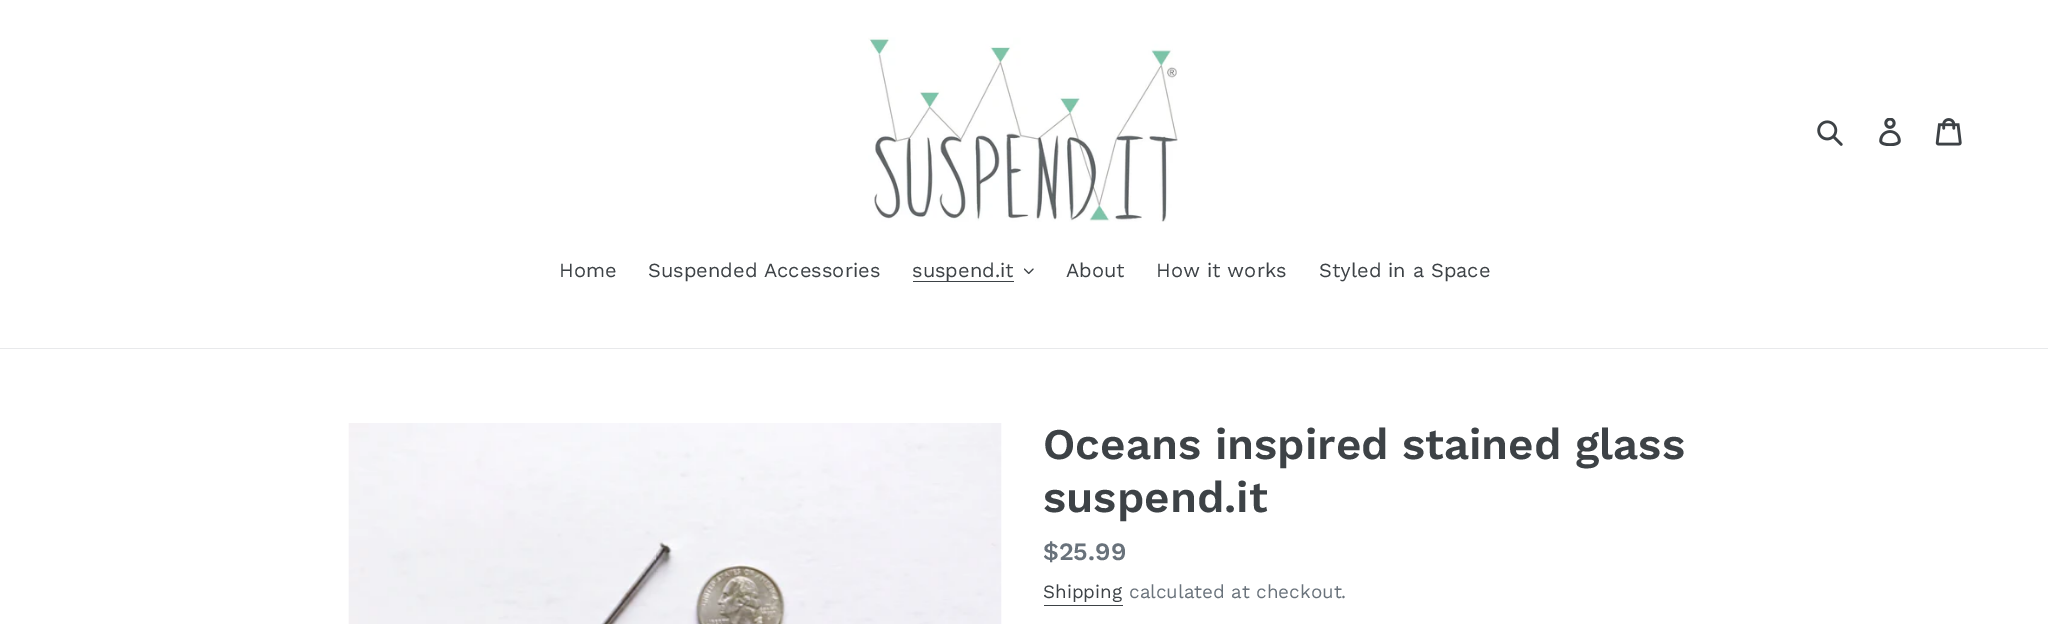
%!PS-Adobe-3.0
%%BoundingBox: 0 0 2048 624
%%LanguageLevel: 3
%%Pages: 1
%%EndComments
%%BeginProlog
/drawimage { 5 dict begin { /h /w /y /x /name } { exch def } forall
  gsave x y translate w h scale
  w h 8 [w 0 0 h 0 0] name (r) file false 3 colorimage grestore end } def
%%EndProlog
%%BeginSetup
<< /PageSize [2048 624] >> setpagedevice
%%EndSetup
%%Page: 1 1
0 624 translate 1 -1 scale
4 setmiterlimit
1 setgray
0 0 2048 624 rectfill
(images/1.raw) 868 37 310 185 drawimage
(images/2.raw) 1817 120 26 26 drawimage
(images/3.raw) 1879 118 22 28 drawimage
(images/4.raw) 1935 118 27 28 drawimage
0.91 0.914 0.922 setrgbcolor
0 348 2048 1 rectfill
0.239 0.259 0.275 setrgbcolor
913 281 101 1 rectfill
(images/5.raw) 1024 268 10 7 drawimage
(images/6.raw) 348 423 654 201 drawimage
1044 605 79 1 rectfill
/WorkSans-Regular [20 0 0 -20 0 0] selectfont
559 277 moveto (Home) show
648 277 moveto (Suspended Accessories) show
912 277 moveto (suspend.it) show
1066 277 moveto (About) show
1156 277 moveto (How it works) show
1319 277 moveto (Styled in a Space) show
/WorkSans-SemiBold [43.75 0 0 -43.75 0 0] selectfont
1043 459 moveto (Oceans inspired stained glass) show
1043 512 moveto (suspend.it) show
/WorkSans-SemiBold [25 0 0 -25 0 0] selectfont
0.412 0.447 0.482 setrgbcolor
1043 560 moveto ($25.99) show
/WorkSans-Regular [18.75 0 0 -18.75 0 0] selectfont
0.239 0.259 0.275 setrgbcolor
1043 598 moveto (Shipping) show
0.412 0.447 0.482 setrgbcolor
1129 598 moveto (calculated at checkout.) show
showpage
%%EOF
